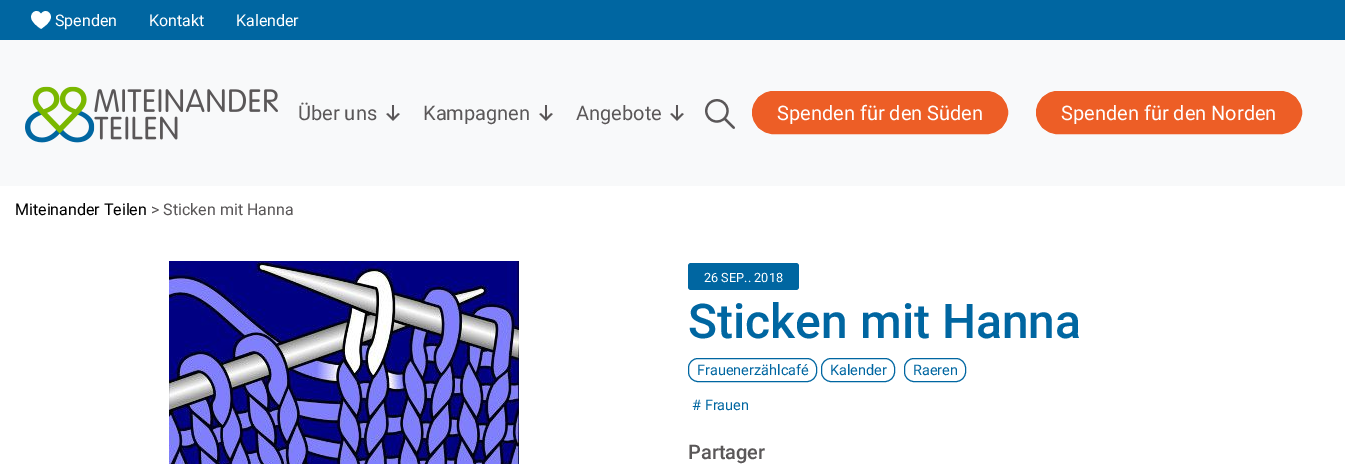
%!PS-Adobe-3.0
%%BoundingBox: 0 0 1345 464
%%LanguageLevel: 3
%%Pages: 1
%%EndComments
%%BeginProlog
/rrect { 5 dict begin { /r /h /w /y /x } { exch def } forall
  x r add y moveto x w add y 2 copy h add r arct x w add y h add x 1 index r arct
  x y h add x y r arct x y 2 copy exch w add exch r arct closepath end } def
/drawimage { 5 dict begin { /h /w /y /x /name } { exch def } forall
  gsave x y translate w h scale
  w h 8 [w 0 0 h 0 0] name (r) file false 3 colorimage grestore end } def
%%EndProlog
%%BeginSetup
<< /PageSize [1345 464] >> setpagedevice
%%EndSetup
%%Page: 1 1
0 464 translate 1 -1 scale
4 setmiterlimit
1 setgray
0 0 1345 464 rectfill
0 0.4 0.631 setrgbcolor
0 0 1345 40 rectfill
(images/1.raw) 31 11 20 18 drawimage
0.973 0.976 0.98 setrgbcolor
0 40 1345 146 rectfill
(images/2.raw) 25 86 253 57 drawimage
(images/3.raw) 386 105 14 16 drawimage
(images/3.raw) 539 105 14 16 drawimage
(images/3.raw) 670 105 14 16 drawimage
(images/4.raw) 705 99 30 30 drawimage
0.929 0.369 0.149 setrgbcolor
752.5 91.5 255 42 21 rrect gsave fill grestore
stroke
1036.5 91.5 265 42 21 rrect gsave fill grestore
stroke
(images/5.raw) 169 261 350 203 drawimage
0 0.4 0.631 setrgbcolor
688 263 111 27 3 rrect fill
688.5 358.5 128 23 9.5 rrect stroke
821.5 358.5 73 23 9.5 rrect stroke
904.5 358.5 61 23 9.5 rrect stroke
/Roboto-Regular [16 0 0 -16 0 0] selectfont
1 setgray
55 26 moveto (Spenden) show
149 26 moveto (Kontakt) show
236 26 moveto (Kalender) show
/Roboto-Regular [20 0 0 -20 0 0] selectfont
0.353 0.341 0.345 setrgbcolor
298 120 moveto (Über uns) show
423 120 moveto (Kampagnen) show
576 120 moveto (Angebote) show
1 setgray
777 120 moveto (Spenden für den Süden) show
1061 120 moveto (Spenden für den Norden) show
/Roboto-Regular [16 0 0 -16 0 0] selectfont
0 setgray
15 215 moveto (Miteinander Teilen) show
0.353 0.341 0.345 setrgbcolor
151 215 moveto (> Sticken mit Hanna) show
/Roboto-Regular [12.75 0 0 -12.75 0 0] selectfont
1 setgray
704 282 moveto (26 SEP.. 2018) show
/Roboto-Medium [48 0 0 -48 0 0] selectfont
0 0.4 0.631 setrgbcolor
688 338 moveto (Sticken mit Hanna) show
/Roboto-Regular [14.5 0 0 -14.5 0 0] selectfont
697 375 moveto (Frauenerzählcafé) show
830 375 moveto (Kalender) show
913 375 moveto (Raeren) show
692 410 moveto (# Frauen) show
/Roboto-Medium [20 0 0 -20 0 0] selectfont
0.353 0.341 0.345 setrgbcolor
688 459 moveto (Partager) show
showpage
%%EOF
